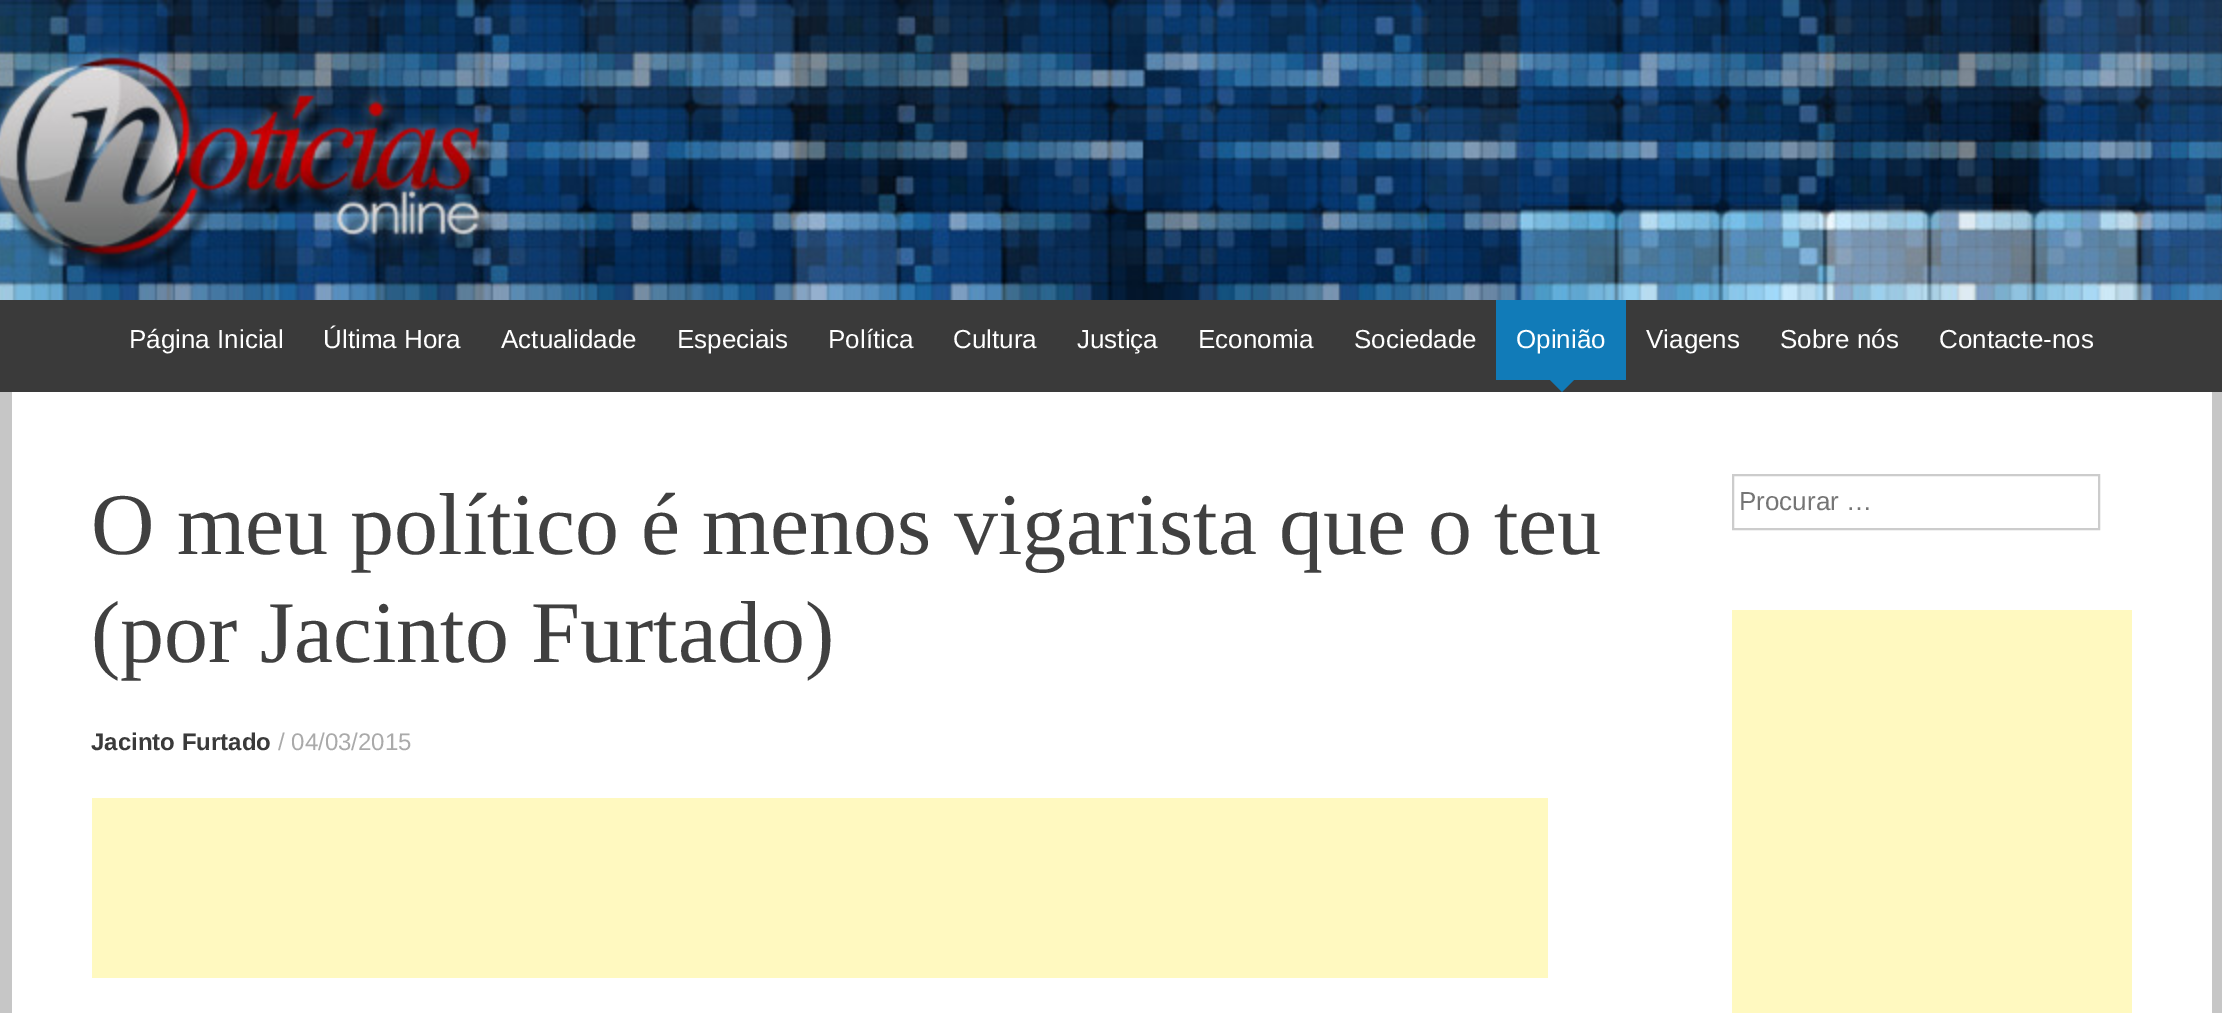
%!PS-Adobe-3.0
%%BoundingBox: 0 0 2222 1013
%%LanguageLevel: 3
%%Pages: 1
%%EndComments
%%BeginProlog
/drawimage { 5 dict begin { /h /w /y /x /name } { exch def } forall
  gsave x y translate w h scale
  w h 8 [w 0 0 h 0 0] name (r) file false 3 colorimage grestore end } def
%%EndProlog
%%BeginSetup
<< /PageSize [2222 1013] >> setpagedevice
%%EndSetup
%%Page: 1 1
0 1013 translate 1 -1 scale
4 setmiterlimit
0.776 setgray
0 0 2222 1013 rectfill
(images/1.raw) 0 0 2222 300 drawimage
0.227 setgray
0 300 2222 92 rectfill
0.067 0.482 0.722 setrgbcolor
1496 300 130 80 rectfill
newpath 1550 380 moveto 1574 380 lineto 1562 392 lineto closepath fill
1 setgray
12 392 2200 621 rectfill
1 0.976 0.753 setrgbcolor
92 798 1456 180 rectfill
0.8 setgray
2 setlinewidth
1733 475 366 54 rectstroke
1 0.976 0.753 setrgbcolor
1732 610 400 403 rectfill
/LiberationSans-Regular [26 0 0 -26 0 0] selectfont
1 setgray
129 348 moveto (Página Inicial) show
323 348 moveto (Última Hora) show
501 348 moveto (Actualidade) show
677 348 moveto (Especiais) show
828 348 moveto (Política) show
953 348 moveto (Cultura) show
1077 348 moveto (Justiça) show
1198 348 moveto (Economia) show
1354 348 moveto (Sociedade) show
1516 348 moveto (Opinião) show
1646 348 moveto (Viagens) show
1780 348 moveto (Sobre nós) show
1939 348 moveto (Contacte-nos) show
/LiberationSerif-Regular [88 0 0 -88 0 0] selectfont
0.251 setgray
91 554 moveto (O meu político é menos vigarista que o teu) show
91 662 moveto (\(por Jacinto Furtado\)) show
/LiberationSans-Bold [24 0 0 -24 0 0] selectfont
0.227 setgray
91 750 moveto (Jacinto Furtado) show
/LiberationSans-Regular [24 0 0 -24 0 0] selectfont
0.667 setgray
278 750 moveto (/ 04/03/2015) show
/LiberationSans-Regular [26 0 0 -26 0 0] selectfont
0.459 setgray
1739 510 moveto (Procurar …) show
showpage
%%EOF
